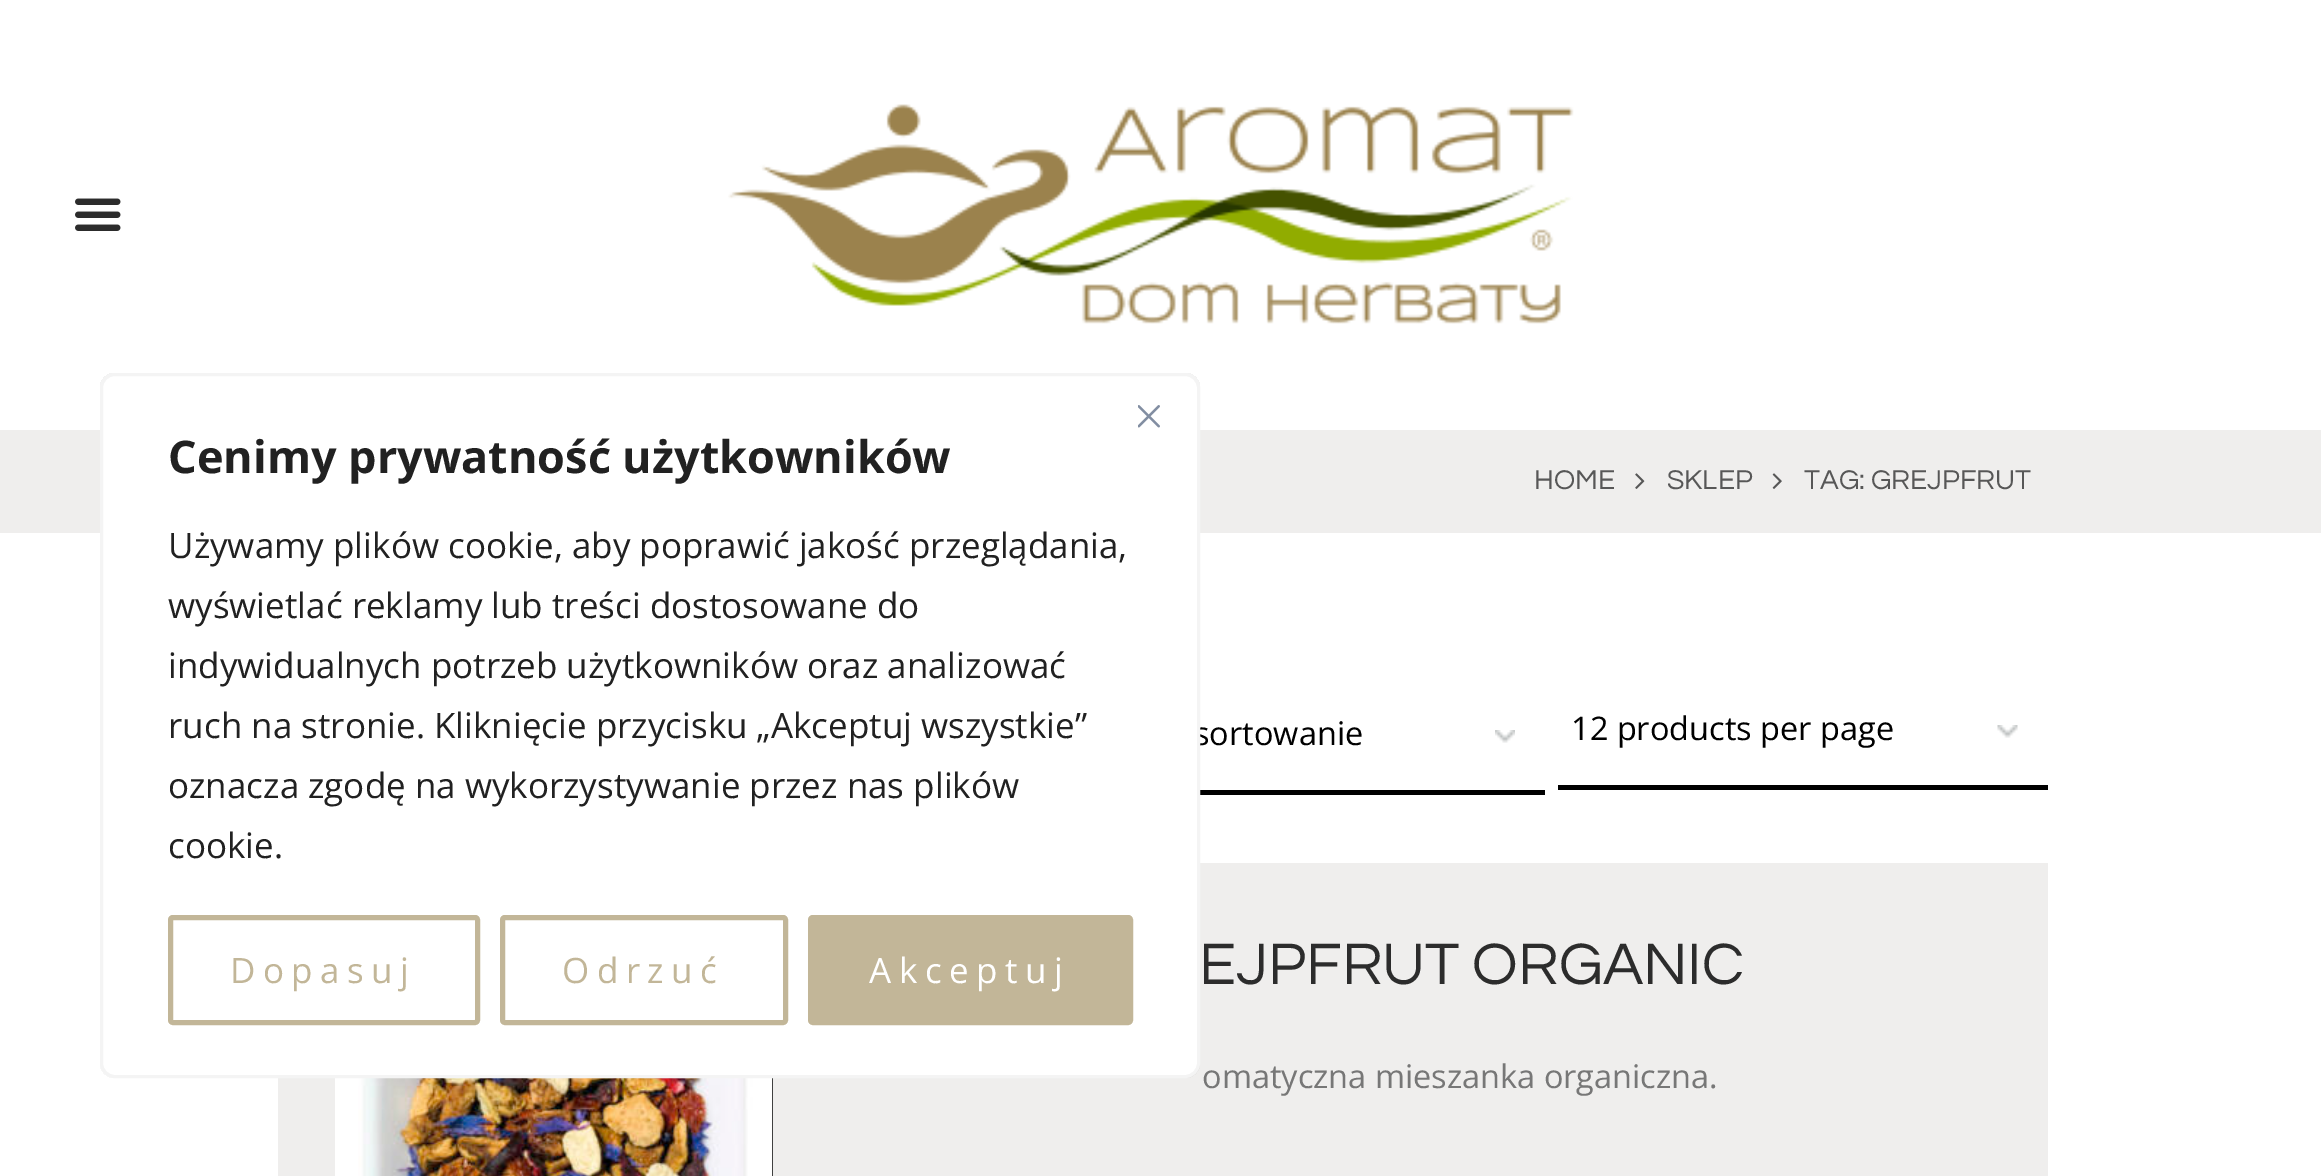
%!PS-Adobe-3.0
%%BoundingBox: 0 0 2321 1176
%%LanguageLevel: 3
%%Pages: 1
%%EndComments
%%BeginProlog
/setalpha { dup .setfillconstantalpha .setstrokeconstantalpha } def
/rrect { 5 dict begin { /r /h /w /y /x } { exch def } forall
  x r add y moveto x w add y 2 copy h add r arct x w add y h add x 1 index r arct
  x y h add x y r arct x y 2 copy exch w add exch r arct closepath end } def
/softshadow { 12 dict begin { /a /b /q /h /w /y /x } { exch def } forall gsave /was 0 def
  9 -2 -9 { dup b mul 4 div /e exch def 1 sub .425 mul 2.718 exch exp 1 add a .99 .min exch div /now exch def
    1 1 now sub 1 was sub div sub setalpha /was now def
    w h .min e 2 mul add 0 gt { x e sub y e sub w e 2 mul add h e 2 mul add
      q e add b .6 mul add w h .min 2 div e add .min 0 .max rrect fill } if } for grestore end } def
/drawimage { 5 dict begin { /h /w /y /x /name } { exch def } forall
  gsave x y translate w h scale
  w h 8 [w 0 0 h 0 0] name (r) file false 3 colorimage grestore end } def
%%EndProlog
%%BeginSetup
<< /PageSize [2321 1176] /PageUsesTransparency true >> setpagedevice
%%EndSetup
%%Page: 1 1
0 .pushpdf14devicefilter
0 1176 translate 1 -1 scale
4 setmiterlimit
1 setgray
0 0 2321 1176 rectfill
0.937 0.933 0.929 setrgbcolor
0 430 2321 103 rectfill
0 setgray
1200 790 345 5 rectfill
0.937 0.933 0.929 setrgbcolor
278 863 1770 313 rectfill
0 setgray
772 1078 1 98 rectfill
(images/8.raw) 335 1078 438 98 drawimage
gsave
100 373 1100 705 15 rrect clip newpath
0.675 0.671 0.671 setrgbcolor
100 370 1100 705 15 12.5 0.3 softshadow
grestore
(images/2.raw) 75 198 46 33 drawimage
(images/3.raw) 728 104 846 220 drawimage
(images/4.raw) 1635 473 10 16 drawimage
(images/5.raw) 1772 473 10 16 drawimage
(images/6.raw) 1495 730 20 13 drawimage
(images/7.raw) 1997 725 21 13 drawimage
1558 785 490 5 rectfill
/Questrial-Regular [28.25 0 0 -28.25 0 0] selectfont
0.341 setgray
1534 489 moveto (HOME) show
1667 489 moveto (SKLEP) show
1804 489 moveto (TAG: GREJPFRUT) show
/OpenSans-Regular [32.5 0 0 -32.5 0 0] selectfont
0 setgray
1194 745 moveto (sortowanie) show
1 setgray
101.5 374.5 1097 702 13.5 rrect gsave fill grestore
0.957 setgray
3 setlinewidth
stroke
(images/1.raw) 1138 405 22 23 drawimage
0.761 0.714 0.596 setrgbcolor
810.5 917.5 320 105 2.5 rrect gsave fill grestore
5 setlinewidth
stroke
/OpenSans-Regular [35 0 0 -35 0 0] selectfont
1 setgray
869 983 moveto 7.5 0 (Akceptuj) ashow
0.761 0.714 0.596 setrgbcolor
502.5 917.5 283 105 2.5 rrect stroke
562 983 moveto 7.5 0 (Odrzuć) ashow
170.5 917.5 307 105 2.5 rrect stroke
230 983 moveto 7.5 0 (Dopasuj) ashow
0.129 setgray
168 858 moveto (cookie.) show
168 798 moveto (oznacza zgodę na wykorzystywanie przez nas plików) show
168 738 moveto (ruch na stronie. Kliknięcie przycisku „Akceptuj wszystkie”) show
168 678 moveto (indywidualnych potrzeb użytkowników oraz analizować) show
168 618 moveto (wyświetlać reklamy lub treści dostosowane do) show
168 558 moveto (Używamy plików cookie, aby poprawić jakość przeglądania,) show
/OpenSans-Bold [45 0 0 -45 0 0] selectfont
168 473 moveto (Cenimy prywatność użytkowników) show
/OpenSans-Regular [32.5 0 0 -32.5 0 0] selectfont
0 setgray
1571 740 moveto (12 products per page) show
/Questrial-Regular [60.75 0 0 -60.75 0 0] selectfont
0.173 setgray
1199 984 moveto (EJPFRUT ORGANIC) show
/OpenSans-Regular [32.5 0 0 -32.5 0 0] selectfont
0.467 setgray
1202 1088 moveto (omatyczna mieszanka organiczna.) show
.poppdf14devicefilter showpage
%%EOF
